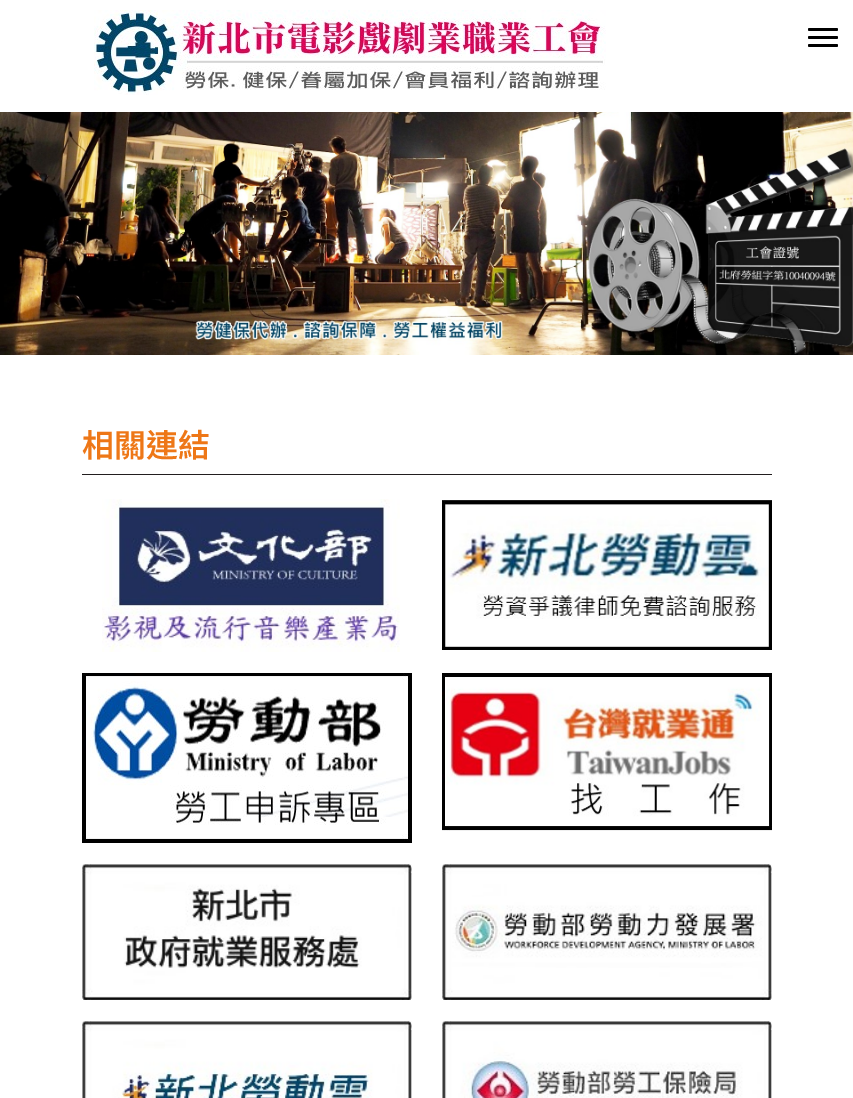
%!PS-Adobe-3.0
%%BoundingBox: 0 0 853 1098
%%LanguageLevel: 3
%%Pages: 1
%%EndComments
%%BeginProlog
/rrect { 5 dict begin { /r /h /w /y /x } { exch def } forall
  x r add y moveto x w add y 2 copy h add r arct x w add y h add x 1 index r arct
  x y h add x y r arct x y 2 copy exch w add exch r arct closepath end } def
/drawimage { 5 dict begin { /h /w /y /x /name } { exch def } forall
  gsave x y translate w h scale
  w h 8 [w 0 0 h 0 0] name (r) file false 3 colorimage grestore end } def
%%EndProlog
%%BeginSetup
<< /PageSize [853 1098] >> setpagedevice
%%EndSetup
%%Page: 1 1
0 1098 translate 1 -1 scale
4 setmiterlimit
1 setgray
0 0 853 1098 rectfill
(images/1.raw) 94 10 512 85 drawimage
0 setgray
808 28 30 3 1.5 rrect fill
808 36 30 3 1.5 rrect fill
808 44 30 3 1.5 rrect fill
(images/2.raw) 0 112 853 243 drawimage
0.133 0.118 0.122 setrgbcolor
82 474 690 1 rectfill
(images/3.raw) 102 499 298 153 drawimage
(images/4.raw) 442 500 330 150 drawimage
(images/5.raw) 82 673 330 170 drawimage
(images/6.raw) 442 673 330 158 drawimage
(images/7.raw) 82 864 330 136 drawimage
(images/8.raw) 442 864 330 136 drawimage
(images/9.raw) 82 1021 330 77 drawimage
(images/10.raw) 442 1021 330 77 drawimage
/NotoSansTC-SemiBold [32 0 0 -32 0 0] selectfont
0.933 0.467 0.09 setrgbcolor
82 457 moveto (相關連結) show
showpage
%%EOF
